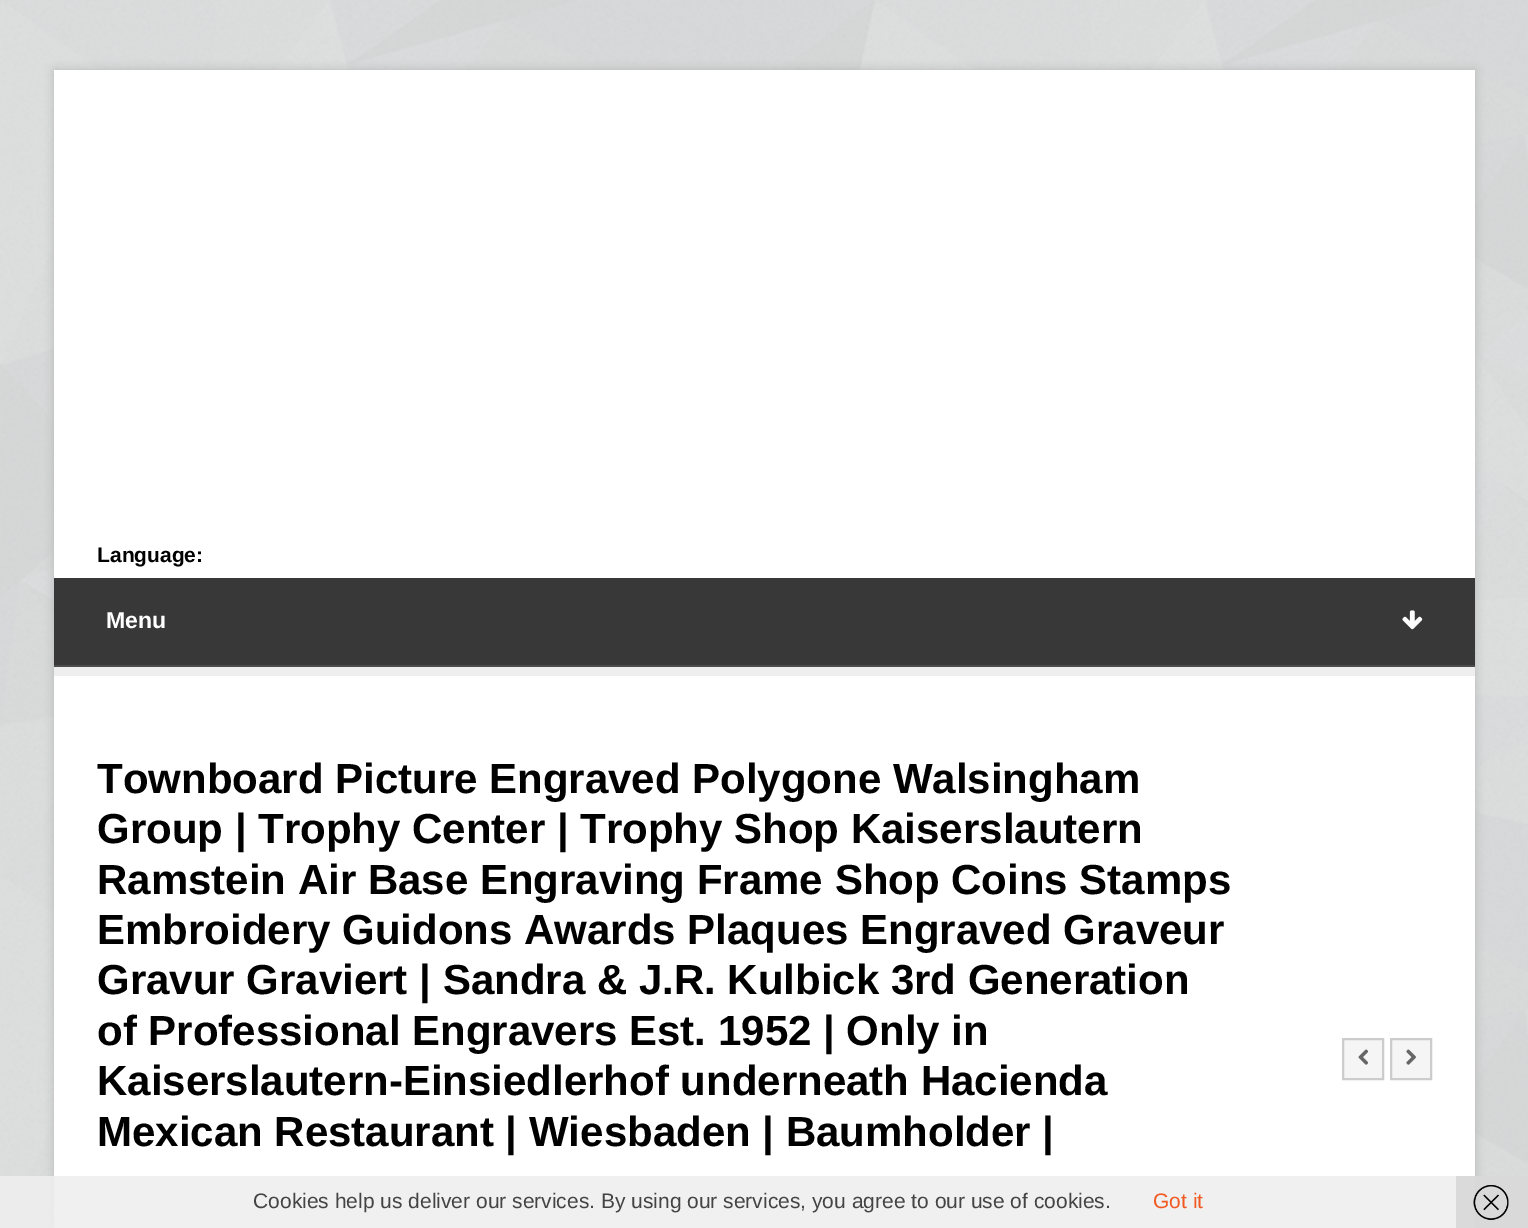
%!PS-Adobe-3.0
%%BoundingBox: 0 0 1528 1228
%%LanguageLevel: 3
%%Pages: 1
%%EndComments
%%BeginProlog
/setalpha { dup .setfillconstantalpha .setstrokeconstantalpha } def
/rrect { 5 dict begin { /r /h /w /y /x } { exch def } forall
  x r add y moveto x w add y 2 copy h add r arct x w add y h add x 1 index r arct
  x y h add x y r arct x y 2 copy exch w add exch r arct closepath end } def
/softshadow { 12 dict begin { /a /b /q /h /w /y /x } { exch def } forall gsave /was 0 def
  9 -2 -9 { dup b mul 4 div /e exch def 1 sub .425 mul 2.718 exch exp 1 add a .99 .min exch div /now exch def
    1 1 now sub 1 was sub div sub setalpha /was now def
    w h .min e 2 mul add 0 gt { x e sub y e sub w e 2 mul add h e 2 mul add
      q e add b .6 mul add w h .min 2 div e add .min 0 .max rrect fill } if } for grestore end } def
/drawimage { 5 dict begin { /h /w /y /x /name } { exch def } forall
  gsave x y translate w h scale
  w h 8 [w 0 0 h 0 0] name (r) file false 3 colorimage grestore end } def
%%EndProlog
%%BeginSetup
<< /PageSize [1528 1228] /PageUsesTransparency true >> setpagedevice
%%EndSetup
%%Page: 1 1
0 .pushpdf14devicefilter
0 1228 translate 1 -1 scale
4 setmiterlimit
1 setgray
0 0 1528 1228 rectfill
(images/1.raw) 0 0 1528 1228 drawimage
0 setgray
54 70 1421 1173 0 5 0.15 softshadow
1 setgray
54 70 1421 1158 rectfill
0.22 setgray
54 578 1421 87 rectfill
0.933 setgray
54 667 1421 9 rectfill
0.298 setgray
54 665 1421 2 rectfill
(images/2.raw) 1402 610 21 20 drawimage
0.961 setgray
newpath 1343 1039 moveto 1383 1039 lineto 1383 1079 lineto 1343 1079 lineto closepath gsave fill grestore
0.8 setgray
2 setlinewidth
stroke
(images/3.raw) 1358 1049 11 16 drawimage
0.961 setgray
newpath 1391 1039 moveto 1431 1039 lineto 1431 1079 lineto 1391 1079 lineto closepath gsave fill grestore
0.8 setgray
stroke
(images/4.raw) 1406 1049 10 16 drawimage
0.9 setalpha
0.933 setgray
0 1176 1528 52 rectfill
0.6 setalpha
0.8 setgray
1456 1176 72 52 rectfill
1 setalpha
(images/5.raw) 1473 1185 36 35 drawimage
/LiberationSans-Bold [21 0 0 -21 0 0] selectfont
0 setgray
97 562 moveto (Language:) show
/LiberationSans-Bold [23 0 0 -23 0 0] selectfont
1 setgray
106 628 moveto (Menu) show
/LiberationSans-Bold [42 0 0 -42 0 0] selectfont
0 setgray
97 793 moveto (Townboard Picture Engraved Polygone Walsingham) show
97 843 moveto (Group | Trophy Center | Trophy Shop Kaiserslautern) show
97 894 moveto (Ramstein Air Base Engraving Frame Shop Coins Stamps) show
97 944 moveto (Embroidery Guidons Awards Plaques Engraved Graveur) show
97 994 moveto (Gravur Graviert | Sandra & J.R. Kulbick 3rd Generation) show
97 1045 moveto (of Professional Engravers Est. 1952 | Only in) show
97 1095 moveto (Kaiserslautern-Einsiedlerhof underneath Hacienda) show
97 1146 moveto (Mexican Restaurant | Wiesbaden | Baumholder |) show
/LiberationSans-Regular [21 0 0 -21 0 0] selectfont
0.267 setgray
253 1208 moveto (Cookies help us deliver our services. By using our services, you agree to our use of cookies.) show
0.945 0.353 0.137 setrgbcolor
1153 1208 moveto (Got it) show
.poppdf14devicefilter showpage
%%EOF
